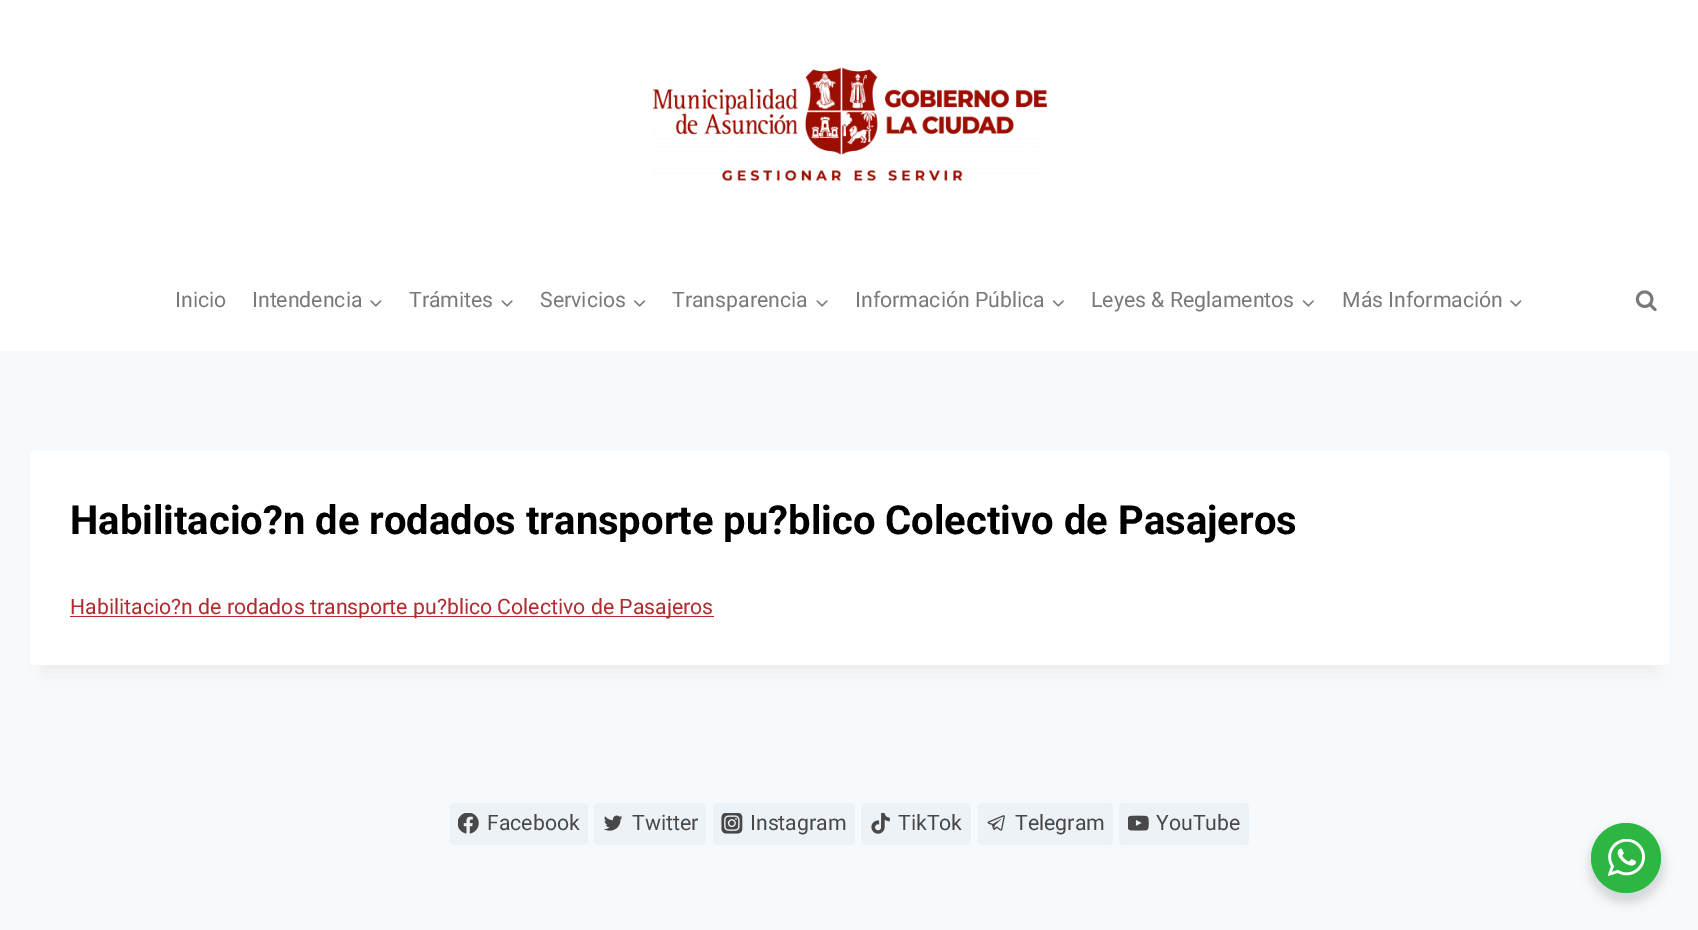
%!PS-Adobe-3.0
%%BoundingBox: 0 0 1698 930
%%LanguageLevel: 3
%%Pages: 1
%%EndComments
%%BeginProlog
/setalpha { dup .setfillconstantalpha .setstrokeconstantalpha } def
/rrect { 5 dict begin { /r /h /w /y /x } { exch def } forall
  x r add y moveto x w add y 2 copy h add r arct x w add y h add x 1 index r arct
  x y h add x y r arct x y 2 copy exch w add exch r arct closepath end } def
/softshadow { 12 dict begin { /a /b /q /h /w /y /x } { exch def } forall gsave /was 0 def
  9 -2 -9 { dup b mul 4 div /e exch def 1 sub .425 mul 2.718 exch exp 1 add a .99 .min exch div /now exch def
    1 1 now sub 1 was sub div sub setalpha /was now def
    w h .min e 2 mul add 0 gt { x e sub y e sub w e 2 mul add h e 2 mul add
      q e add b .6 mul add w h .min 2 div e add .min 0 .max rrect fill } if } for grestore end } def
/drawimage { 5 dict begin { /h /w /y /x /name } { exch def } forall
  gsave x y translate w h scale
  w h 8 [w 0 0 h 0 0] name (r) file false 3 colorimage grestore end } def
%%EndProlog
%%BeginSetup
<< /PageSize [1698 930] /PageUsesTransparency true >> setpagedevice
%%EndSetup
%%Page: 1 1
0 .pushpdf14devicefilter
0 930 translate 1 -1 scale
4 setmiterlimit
0.969 0.98 0.988 setrgbcolor
0 0 1698 930 rectfill
1 setgray
0 0 1698 351 rectfill
(images/1.raw) 652 67 395 115 drawimage
(images/2.raw) 370 300 12 7 drawimage
(images/3.raw) 501 300 12 7 drawimage
(images/4.raw) 634 300 12 7 drawimage
(images/3.raw) 816 300 12 7 drawimage
(images/5.raw) 1052 300 12 7 drawimage
(images/5.raw) 1302 300 12 7 drawimage
(images/2.raw) 1510 300 12 7 drawimage
(images/6.raw) 1635 290 22 21 drawimage
0 setgray
43 483 1613 188 0 9.5 0.05 softshadow
1 setgray
30 451 1639 214 5 rrect fill
0.69 0.169 0.176 setrgbcolor
70 616 644 1 rectfill
0.929 0.949 0.969 setrgbcolor
450 803 138 42 4 rrect fill
(images/7.raw) 458 813 21 21 drawimage
594 803 112 42 4 rrect fill
(images/8.raw) 604 815 19 16 drawimage
713 803 142 42 4 rrect fill
(images/9.raw) 721 813 22 21 drawimage
861 803 110 42 4 rrect fill
(images/10.raw) 871 813 19 21 drawimage
978 803 135 42 4 rrect fill
(images/11.raw) 987 815 18 16 drawimage
1119 803 130 42 4 rrect fill
(images/12.raw) 1128 815 21 16 drawimage
0 setgray
1589 828 75 75 37.5 5 0.14 softshadow
0.176 0.718 0.259 setrgbcolor
newpath 1626 858 35 0 360 arc closepath fill
(images/13.raw) 1608 839 37 37 drawimage
/Roboto-Regular [21.25 0 0 -21.25 0 0] selectfont
0.475 setgray
175 307 moveto (Inicio) show
252 307 moveto (Intendencia) show
409 307 moveto (Trámites) show
540 307 moveto (Servicios) show
672 307 moveto (Transparencia) show
855 307 moveto (Información Pública) show
1091 307 moveto (Leyes & Reglamentos) show
1342 307 moveto (Más Información) show
/Roboto-Bold [40 0 0 -40 0 0] selectfont
0 setgray
70 534 moveto (Habilitacio?n de rodados transporte pu?blico Colectivo de Pasajeros) show
/Roboto-Regular [21.25 0 0 -21.25 0 0] selectfont
0.69 0.169 0.176 setrgbcolor
70 614 moveto (Habilitacio?n de rodados transporte pu?blico Colectivo de Pasajeros) show
0.282 setgray
487 830 moveto (Facebook) show
632 830 moveto (Twitter) show
750 830 moveto (Instagram) show
898 830 moveto (TikTok) show
1015 830 moveto (Telegram) show
1156 830 moveto (YouTube) show
.poppdf14devicefilter showpage
%%EOF
